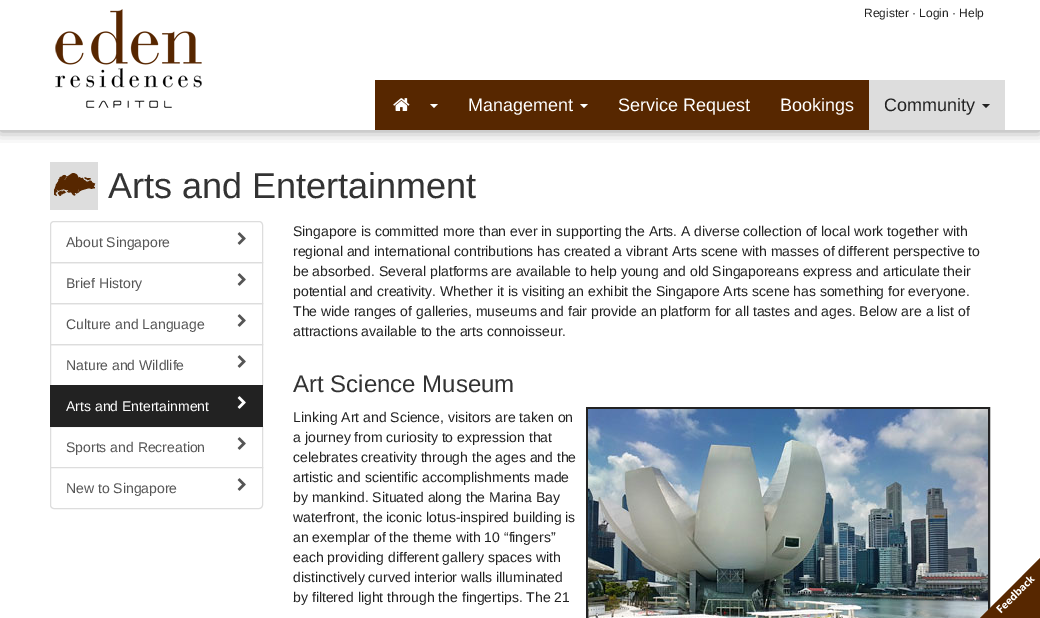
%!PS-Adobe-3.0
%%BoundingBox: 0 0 1040 618
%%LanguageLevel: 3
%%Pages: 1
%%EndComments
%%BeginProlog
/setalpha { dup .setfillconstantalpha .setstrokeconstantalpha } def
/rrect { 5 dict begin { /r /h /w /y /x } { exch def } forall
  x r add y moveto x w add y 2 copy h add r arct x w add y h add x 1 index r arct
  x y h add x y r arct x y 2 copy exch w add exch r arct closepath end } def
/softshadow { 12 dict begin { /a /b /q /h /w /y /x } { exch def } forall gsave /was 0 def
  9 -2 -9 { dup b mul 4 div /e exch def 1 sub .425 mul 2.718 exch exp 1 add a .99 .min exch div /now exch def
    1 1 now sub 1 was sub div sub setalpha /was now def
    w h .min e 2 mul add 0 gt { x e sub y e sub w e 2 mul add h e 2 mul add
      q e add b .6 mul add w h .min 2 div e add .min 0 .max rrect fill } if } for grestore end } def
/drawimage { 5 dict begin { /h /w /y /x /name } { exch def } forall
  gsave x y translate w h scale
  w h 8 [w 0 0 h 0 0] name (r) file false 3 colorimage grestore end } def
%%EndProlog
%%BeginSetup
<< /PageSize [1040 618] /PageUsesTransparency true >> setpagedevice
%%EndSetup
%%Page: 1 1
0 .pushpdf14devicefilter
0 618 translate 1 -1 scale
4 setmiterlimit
1 setgray
0 0 1040 618 rectfill
gsave
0 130 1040 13 rectclip
0 setgray
0 1 1040 130 0 7 0.4 softshadow
grestore
(images/1.raw) 55 9 147 99 drawimage
0.341 0.153 0 setrgbcolor
375 80 494 50 rectfill
(images/2.raw) 393 98 17 13 drawimage
1 setgray
newpath 430 104 moveto 438 104 lineto 434 108 lineto closepath fill
newpath 580 104 moveto 588 104 lineto 584 108 lineto closepath fill
0.867 setgray
869 80 136 50 rectfill
0.133 setgray
newpath 982 104 moveto 990 104 lineto 986 108 lineto closepath fill
0.867 setgray
50 162 48 48 rectfill
(images/3.raw) 54 173 42 23 drawimage
newpath 54 221.5 moveto 259 221.5 lineto 261 221.5 262.5 223 262.5 225 curveto 262.5 262.5 lineto 50.5 262.5 lineto 50.5 225 lineto 50.5 223 52 221.5 54 221.5 curveto closepath stroke
(images/4.raw) 237 232 9 13 drawimage
50.5 262.5 212 41 rectstroke
(images/4.raw) 237 273 9 13 drawimage
50.5 303.5 212 41 rectstroke
(images/4.raw) 237 314 9 13 drawimage
50.5 344.5 212 41 rectstroke
(images/4.raw) 237 355 9 13 drawimage
50.5 426.5 212 41 rectstroke
0.133 setgray
50 385 213 42 rectfill
(images/5.raw) 237 396 9 13 drawimage
(images/4.raw) 237 437 9 13 drawimage
1 setgray
newpath 50.5 467.5 moveto 262.5 467.5 lineto 262.5 505 lineto 262.5 507 261 508.5 259 508.5 curveto 54 508.5 lineto 52 508.5 50.5 507 50.5 505 curveto closepath gsave fill grestore
0.867 setgray
stroke
(images/4.raw) 237 478 9 13 drawimage
0.133 setgray
2 setlinewidth
587 408 402 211 rectstroke
(images/6.raw) 588 409 400 209 drawimage
0.341 0.153 0 setrgbcolor
newpath 1040 618 moveto 980 618 lineto 1040 558 lineto closepath fill
(images/7.raw) 996 576 40 38 drawimage
/LiberationSans-Regular [12 0 0 -12 0 0] selectfont
0.133 setgray
864 17 moveto (Register · Login · Help) show
/LiberationSans-Regular [18 0 0 -18 0 0] selectfont
1 setgray
468 111 moveto (Management) show
618 111 moveto (Service Request) show
780 111 moveto (Bookings) show
0.133 setgray
884 111 moveto (Community) show
/LiberationSans-Regular [36 0 0 -36 0 0] selectfont
0.2 setgray
108 198 moveto (Arts and Entertainment) show
/LiberationSans-Regular [14 0 0 -14 0 0] selectfont
0.333 setgray
66 247 moveto (About Singapore) show
66 288 moveto (Brief History) show
66 329 moveto (Culture and Language) show
66 370 moveto (Nature and Wildlife) show
1 setgray
66 411 moveto (Arts and Entertainment) show
0.333 setgray
66 452 moveto (Sports and Recreation) show
66 493 moveto (New to Singapore) show
0.133 setgray
293 236 moveto (Singapore is committed more than ever in supporting the Arts. A diverse collection of local work together with) show
293 256 moveto (regional and international contributions has created a vibrant Arts scene with masses of different perspective to) show
293 276 moveto (be absorbed. Several platforms are available to help young and old Singaporeans express and articulate their) show
293 296 moveto (potential and creativity. Whether it is visiting an exhibit the Singapore Arts scene has something for everyone.) show
293 316 moveto (The wide ranges of galleries, museums and fair provide an platform for all tastes and ages. Below are a list of) show
293 336 moveto (attractions available to the arts connoisseur.) show
/LiberationSans-Regular [24 0 0 -24 0 0] selectfont
0.2 setgray
293 392 moveto (Art Science Museum) show
/LiberationSans-Regular [14 0 0 -14 0 0] selectfont
0.133 setgray
293 422 moveto (Linking Art and Science, visitors are taken on) show
293 442 moveto (a journey from curiosity to expression that) show
293 462 moveto (celebrates creativity through the ages and the) show
293 482 moveto (artistic and scientific accomplishments made) show
293 502 moveto (by mankind. Situated along the Marina Bay) show
293 522 moveto (waterfront, the iconic lotus-inspired building is) show
293 542 moveto (an exemplar of the theme with 10 “fingers”) show
293 562 moveto (each providing different gallery spaces with) show
293 582 moveto (distinctively curved interior walls illuminated) show
293 602 moveto (by filtered light through the fingertips. The 21) show
.poppdf14devicefilter showpage
%%EOF
